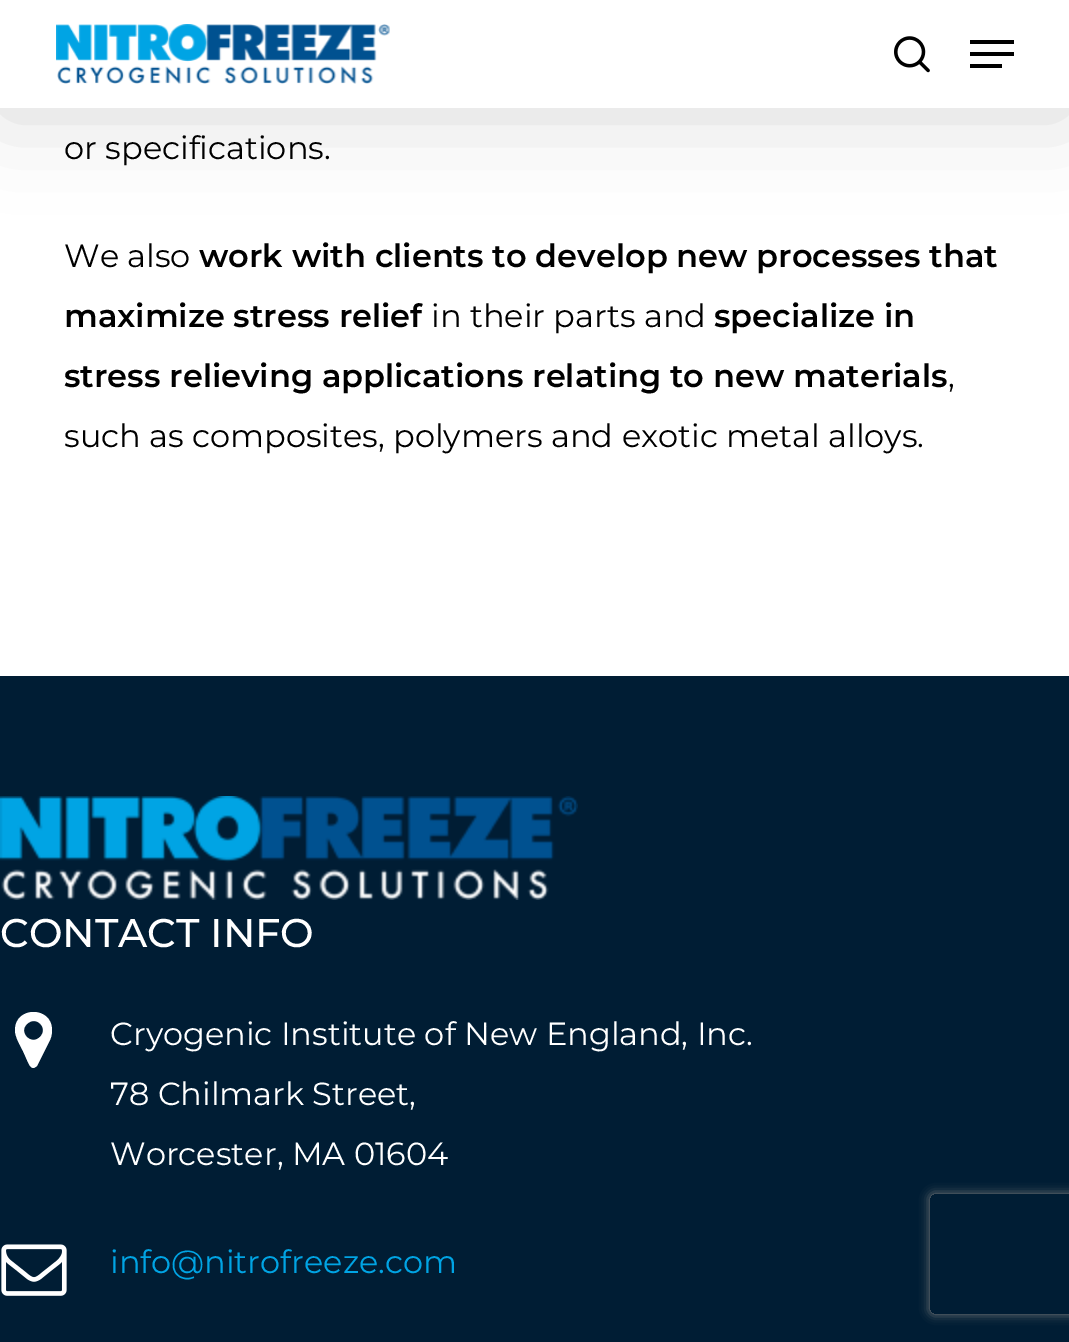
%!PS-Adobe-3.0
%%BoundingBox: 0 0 1069 1342
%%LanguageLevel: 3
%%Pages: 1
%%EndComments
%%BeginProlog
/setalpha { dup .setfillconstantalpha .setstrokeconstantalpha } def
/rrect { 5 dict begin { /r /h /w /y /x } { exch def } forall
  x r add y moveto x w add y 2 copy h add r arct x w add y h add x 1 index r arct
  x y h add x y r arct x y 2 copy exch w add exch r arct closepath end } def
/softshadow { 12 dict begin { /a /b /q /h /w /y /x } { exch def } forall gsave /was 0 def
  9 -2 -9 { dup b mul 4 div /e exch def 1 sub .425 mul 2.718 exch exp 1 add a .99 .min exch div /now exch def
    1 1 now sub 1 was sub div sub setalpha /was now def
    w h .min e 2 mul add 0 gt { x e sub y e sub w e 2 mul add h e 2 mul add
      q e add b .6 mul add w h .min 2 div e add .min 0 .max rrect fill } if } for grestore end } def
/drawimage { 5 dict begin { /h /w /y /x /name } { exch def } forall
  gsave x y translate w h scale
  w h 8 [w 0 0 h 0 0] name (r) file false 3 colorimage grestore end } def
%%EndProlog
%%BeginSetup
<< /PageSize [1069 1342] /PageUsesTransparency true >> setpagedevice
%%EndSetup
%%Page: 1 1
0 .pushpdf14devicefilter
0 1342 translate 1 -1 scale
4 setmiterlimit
1 setgray
0 0 1069 1342 rectfill
0 setgray
0 6 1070 108 0 45 0.15 softshadow
1 setgray
0 0 1069 108 rectfill
(images/1.raw) 56 24 334 60 drawimage
(images/2.raw) 894 36 36 37 drawimage
0 setgray
970 40 44 4 rectfill
970 64 32 4 rectfill
970 52 44 4 rectfill
0 0.114 0.204 setrgbcolor
0 676 1069 666 rectfill
(images/3.raw) 0 796 578 104 drawimage
1 setgray
newpath 40 1037 moveto 49 1028 36 1015 27 1024 curveto 18 1032 31 1046 40 1037 curveto closepath 52 1030 moveto 52 1035 51 1038 49 1042 curveto 37 1066 lineto 34 1068 lineto 30 1068 29 1064 27 1060 curveto 23 1051 lineto 20 1045 15 1037 15 1030 curveto 15 1006 52 1006 52 1030 curveto closepath fill
(images/4.raw) 1 1244 66 52 drawimage
gsave
newpath 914 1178 moveto 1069 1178 lineto 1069 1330 lineto 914 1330 lineto closepath 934 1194 moveto 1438 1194 lineto 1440 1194 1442 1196 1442 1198 curveto 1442 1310 lineto 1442 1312 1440 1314 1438 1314 curveto 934 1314 lineto 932 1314 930 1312 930 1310 curveto 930 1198 lineto 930 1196 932 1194 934 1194 curveto closepath eoclip newpath
0.502 setgray
930 1194 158 120 4 5 1 softshadow
grestore
/Montserrat-Regular [32 0 0 -32 0 0] selectfont
0 setgray
64 159 moveto (or specifications.) show
64 267 moveto (We also) show
/Montserrat-SemiBold [32 0 0 -32 0 0] selectfont
199 267 moveto (work with clients to develop new processes that) show
64 327 moveto (maximize stress relief) show
/Montserrat-Regular [32 0 0 -32 0 0] selectfont
431 327 moveto (in their parts and) show
/Montserrat-SemiBold [32 0 0 -32 0 0] selectfont
714 327 moveto (specialize in) show
64 387 moveto (stress relieving applications relating to new materials) show
/Montserrat-Regular [32 0 0 -32 0 0] selectfont
948 387 moveto (,) show
64 447 moveto (such as composites, polymers and exotic metal alloys.) show
/Montserrat-Medium [40 0 0 -40 0 0] selectfont
1 setgray
0 947 moveto (CONTACT INFO) show
/Montserrat-Regular [32 0 0 -32 0 0] selectfont
110 1045 moveto (Cryogenic Institute of New England, Inc.) show
110 1105 moveto (78 Chilmark Street,) show
110 1165 moveto (Worcester, MA 01604) show
0 0.643 0.894 setrgbcolor
110 1273 moveto (info@nitrofreeze.com) show
.poppdf14devicefilter showpage
%%EOF
